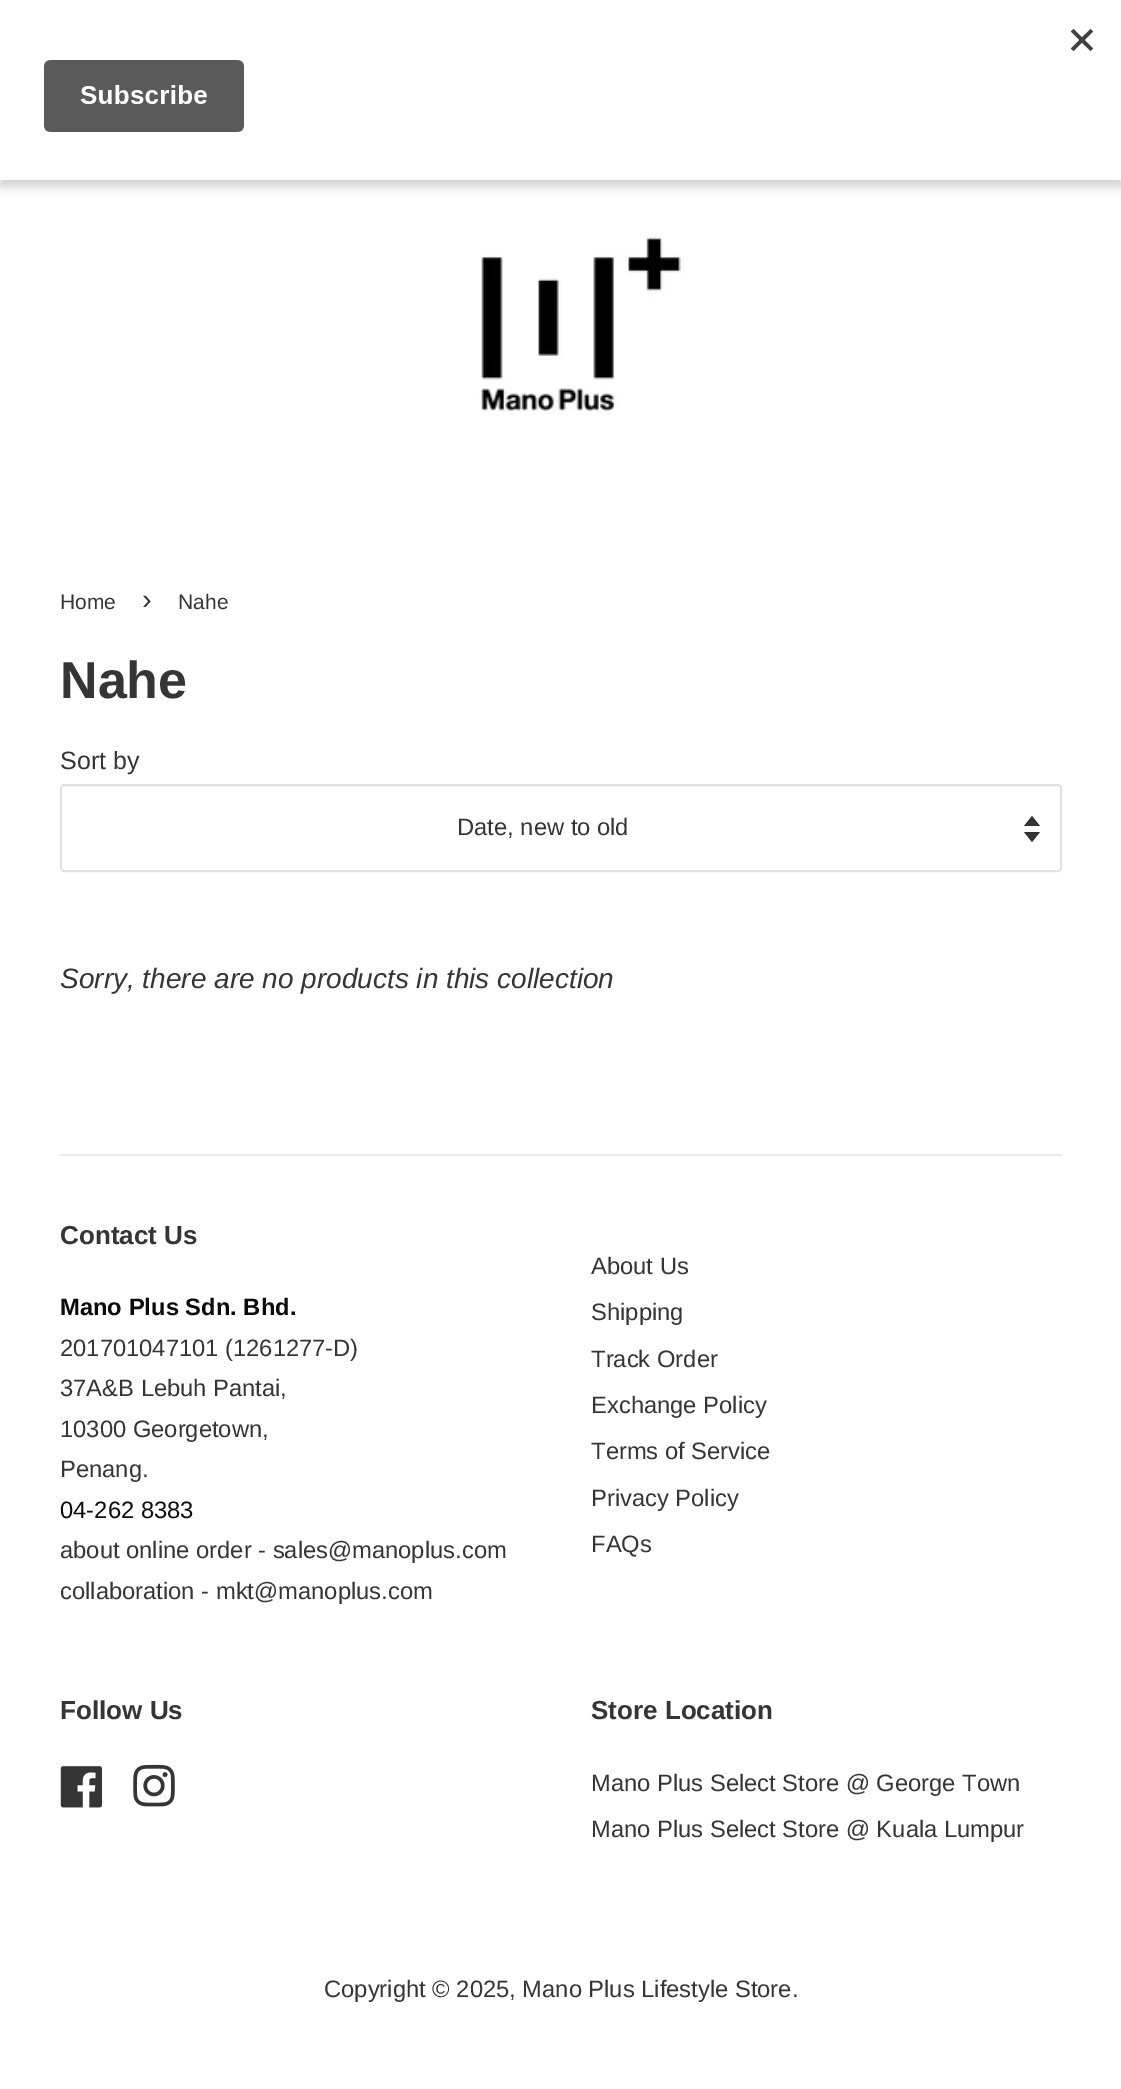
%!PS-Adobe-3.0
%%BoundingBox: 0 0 1121 2089
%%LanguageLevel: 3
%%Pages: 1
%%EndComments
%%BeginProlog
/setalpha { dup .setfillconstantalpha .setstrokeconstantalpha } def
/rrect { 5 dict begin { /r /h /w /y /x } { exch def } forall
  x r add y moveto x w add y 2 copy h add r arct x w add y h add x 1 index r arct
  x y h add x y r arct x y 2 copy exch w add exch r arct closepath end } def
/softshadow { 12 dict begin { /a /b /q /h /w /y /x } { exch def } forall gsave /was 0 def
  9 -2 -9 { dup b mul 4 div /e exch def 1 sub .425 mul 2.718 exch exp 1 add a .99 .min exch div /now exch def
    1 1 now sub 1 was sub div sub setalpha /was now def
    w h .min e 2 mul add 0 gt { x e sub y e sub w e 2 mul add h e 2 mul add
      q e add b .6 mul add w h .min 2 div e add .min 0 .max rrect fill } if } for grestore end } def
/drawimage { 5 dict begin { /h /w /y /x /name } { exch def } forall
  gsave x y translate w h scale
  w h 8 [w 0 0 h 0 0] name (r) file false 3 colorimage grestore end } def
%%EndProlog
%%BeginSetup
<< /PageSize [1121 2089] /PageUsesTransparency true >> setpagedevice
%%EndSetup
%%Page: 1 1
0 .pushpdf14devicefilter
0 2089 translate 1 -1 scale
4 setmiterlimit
1 setgray
0 0 1121 2089 rectfill
0 setgray
0 6 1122 180 0 6 0.2 softshadow
1 setgray
0 0 1121 180 rectfill
(images/1.raw) 44 28 1050 104 drawimage
(images/2.raw) 479 234 205 180 drawimage
0.2 setgray
newpath 1024 832 moveto 1032 842 lineto 1040 832 lineto closepath 1032 816 moveto 1024 826 lineto 1040 826 lineto closepath fill
0.882 setgray
2 setlinewidth
61 785 1000 86 3 rrect stroke
0.922 setgray
60 1154 1002 2 rectfill
(images/3.raw) 60 1766 43 42 drawimage
(images/4.raw) 133 1764 42 43 drawimage
/LiberationSans-Regular [21 0 0 -21 0 0] selectfont
0.208 setgray
60 609 moveto (Home) show
/LiberationSans-Regular [29 0 0 -29 0 0] selectfont
142 609 moveto (›) show
/LiberationSans-Regular [21 0 0 -21 0 0] selectfont
178 609 moveto (Nahe) show
/LiberationSans-Bold [52 0 0 -52 0 0] selectfont
60 698 moveto (Nahe) show
/LiberationSans-Regular [25 0 0 -25 0 0] selectfont
60 769 moveto (Sort by) show
/LiberationSans-Regular [23.75 0 0 -23.75 0 0] selectfont
457 835 moveto (Date, new to old) show
/LiberationSans-Italic [28 0 0 -28 0 0] selectfont
60 988 moveto (Sorry, there are no products in this collection) show
/LiberationSans-Bold [26 0 0 -26 0 0] selectfont
60 1244 moveto (Contact Us) show
/LiberationSans-Bold [23.75 0 0 -23.75 0 0] selectfont
0.043 setgray
60 1315 moveto (Mano Plus Sdn. Bhd.) show
/LiberationSans-Regular [23.75 0 0 -23.75 0 0] selectfont
0.208 setgray
60 1356 moveto (201701047101 \(1261277-D\)) show
60 1396 moveto (37A&B Lebuh Pantai,) show
60 1437 moveto (10300 Georgetown,) show
60 1477 moveto (Penang.) show
0.043 setgray
60 1518 moveto (04-262 8383) show
0.208 setgray
60 1558 moveto (about online order - sales@manoplus.com) show
60 1599 moveto (collaboration - mkt@manoplus.com) show
591 1274 moveto (About Us) show
591 1320 moveto (Shipping) show
591 1367 moveto (Track Order) show
591 1413 moveto (Exchange Policy) show
591 1459 moveto (Terms of Service) show
591 1506 moveto (Privacy Policy) show
591 1552 moveto (FAQs) show
/LiberationSans-Bold [26 0 0 -26 0 0] selectfont
60 1719 moveto (Follow Us) show
591 1719 moveto (Store Location) show
/LiberationSans-Regular [23.75 0 0 -23.75 0 0] selectfont
591 1791 moveto (Mano Plus Select Store @ George Town) show
591 1837 moveto (Mano Plus Select Store @ Kuala Lumpur) show
324 1997 moveto (Copyright © 2025, Mano Plus Lifestyle Store.) show
.poppdf14devicefilter showpage
%%EOF
